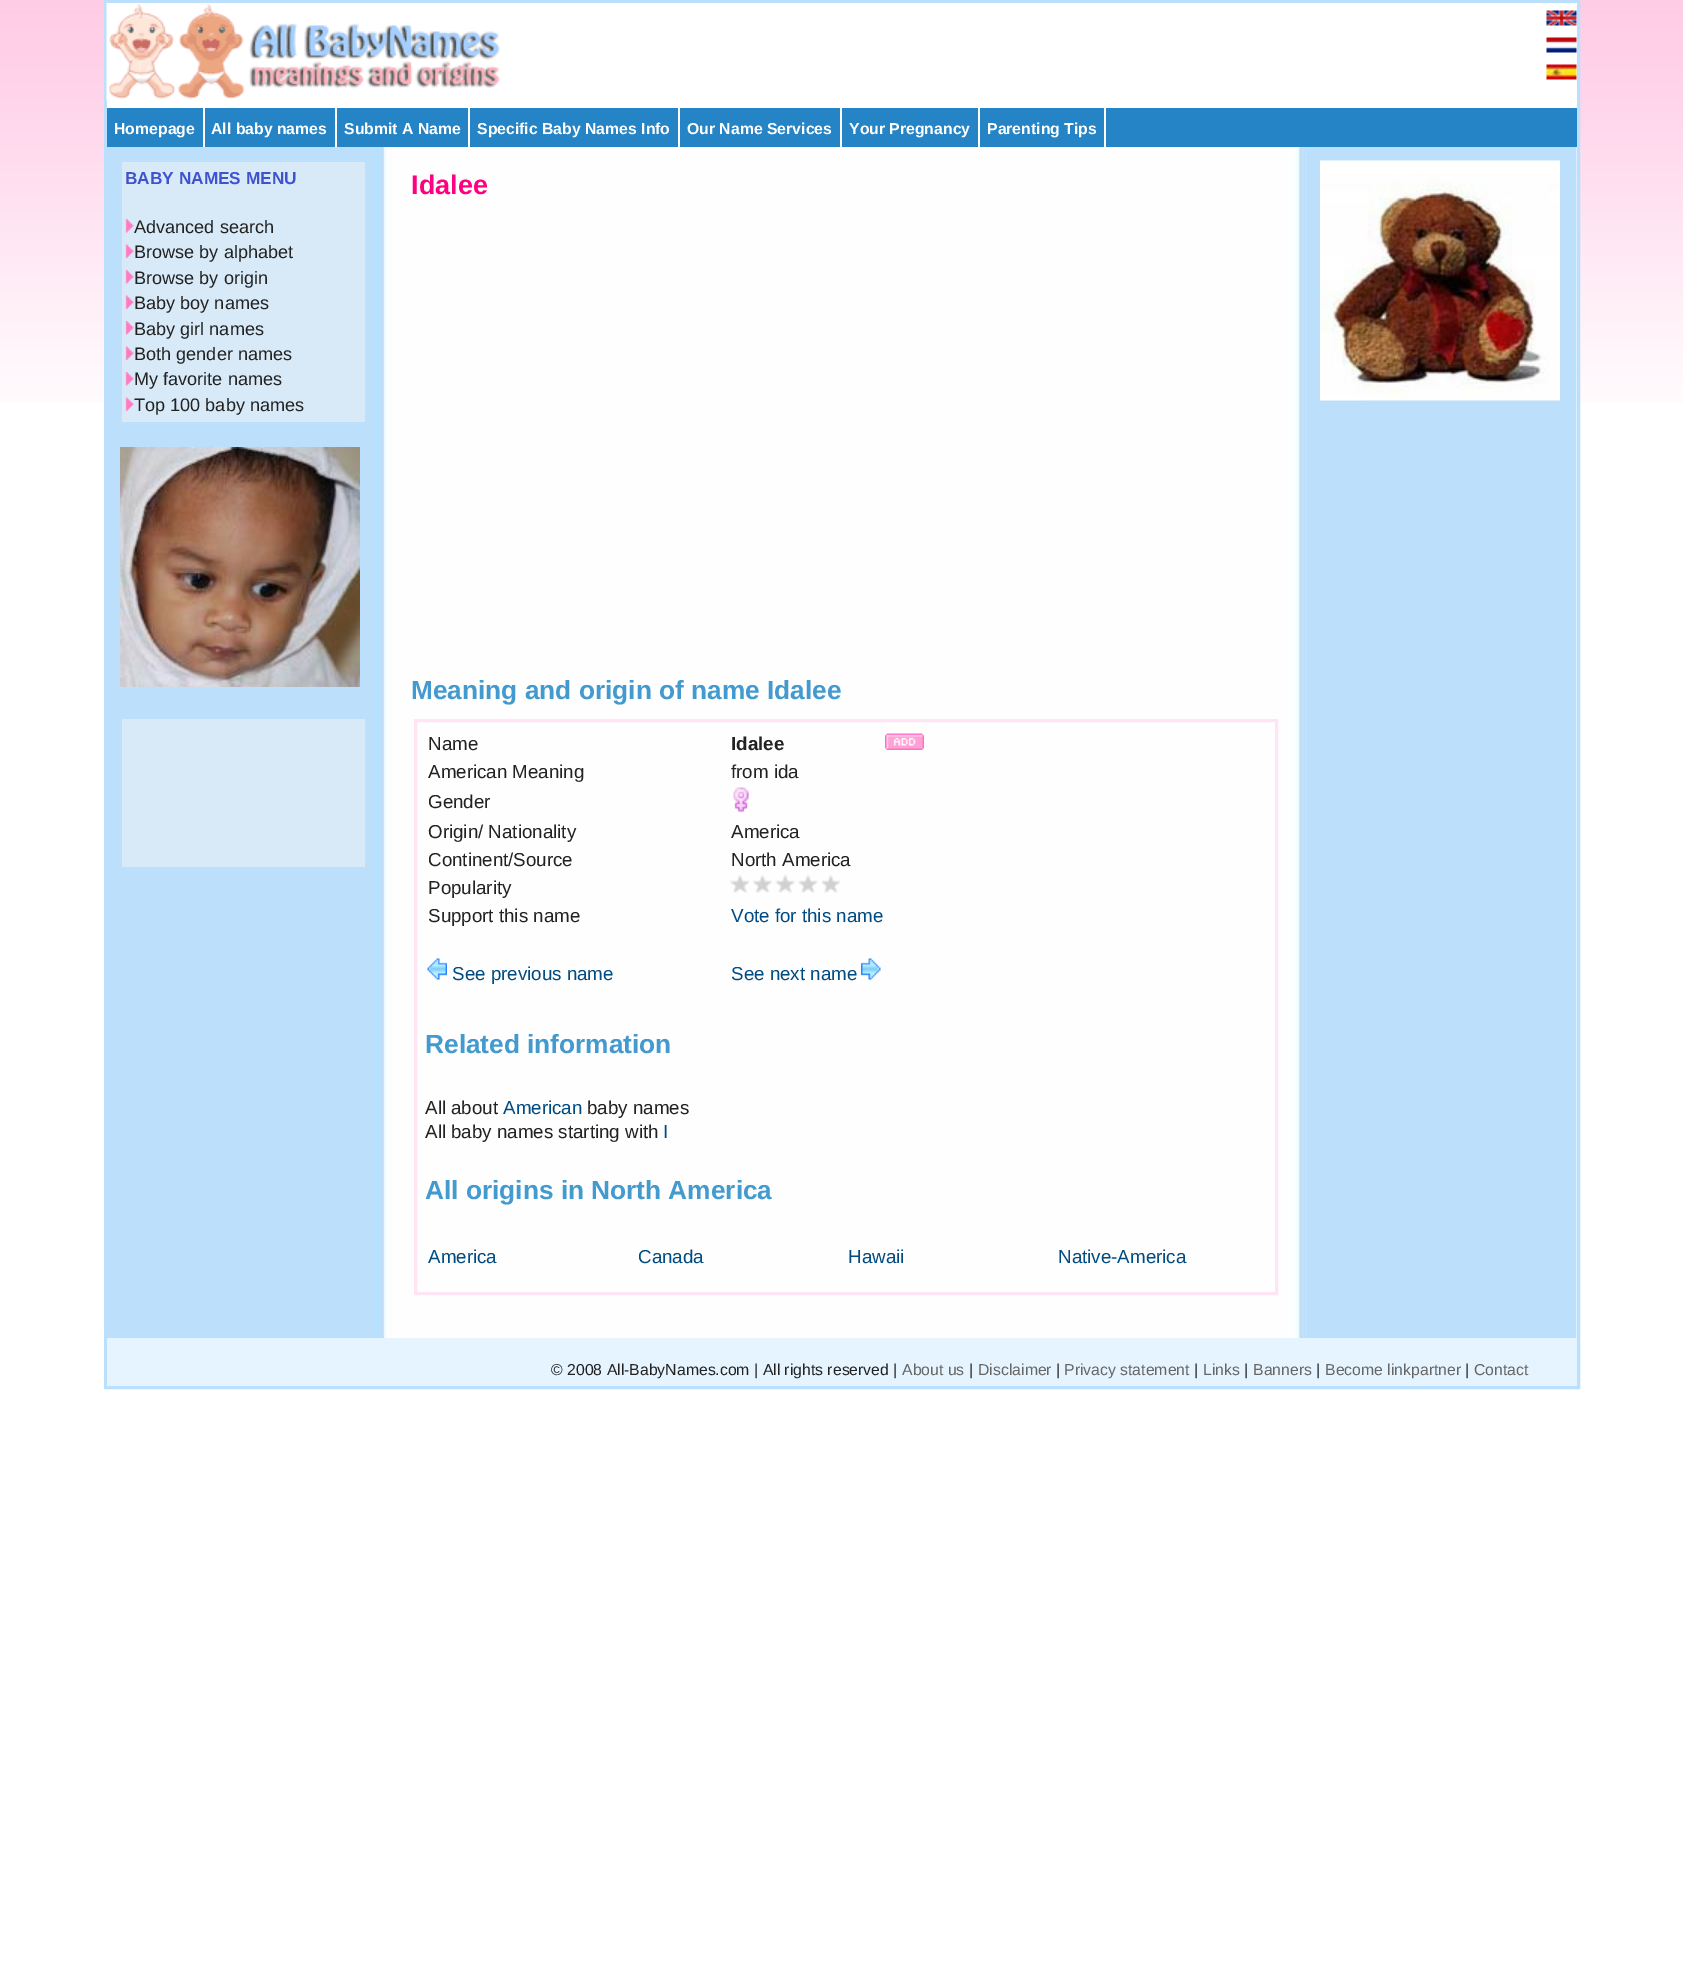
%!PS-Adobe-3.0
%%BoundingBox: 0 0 1683 1967
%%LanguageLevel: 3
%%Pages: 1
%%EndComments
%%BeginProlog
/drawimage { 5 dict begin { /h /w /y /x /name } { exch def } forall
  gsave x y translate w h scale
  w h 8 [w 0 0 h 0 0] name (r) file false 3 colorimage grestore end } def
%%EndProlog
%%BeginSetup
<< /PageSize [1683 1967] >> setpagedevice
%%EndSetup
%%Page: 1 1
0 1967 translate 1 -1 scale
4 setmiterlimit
1 setgray
0 0 1683 1967 rectfill
(images/1.raw) 0 0 1683 403 drawimage
1576 147 1 256 rectfill
(images/2.raw) 107 147 1470 1191 drawimage
0.733 0.878 0.992 setrgbcolor
3 setlinewidth
105.5 1.5 1473 1386 rectstroke
1 setgray
107 3 1470 105 rectfill
(images/3.raw) 106 3 394 98 drawimage
(images/4.raw) 1546 10 31 16 drawimage
(images/5.raw) 1546 37 31 16 drawimage
(images/6.raw) 1546 64 31 16 drawimage
0.145 0.518 0.776 setrgbcolor
107 108 1470 39 rectfill
1 setgray
203 108 2 39 rectfill
335 108 2 39 rectfill
468 108 2 39 rectfill
678 108 2 39 rectfill
840 108 2 39 rectfill
978 108 2 39 rectfill
1104 108 2 39 rectfill
0.847 0.918 0.973 setrgbcolor
122 162 243 260 rectfill
(images/7.raw) 125 219 9 14 drawimage
(images/8.raw) 125 244 9 14 drawimage
(images/7.raw) 125 270 9 14 drawimage
(images/8.raw) 125 295 9 14 drawimage
(images/7.raw) 125 321 9 14 drawimage
(images/8.raw) 125 346 9 14 drawimage
(images/7.raw) 125 372 9 14 drawimage
(images/8.raw) 125 397 9 14 drawimage
(images/9.raw) 120 447 240 240 drawimage
122 719 243 148 rectfill
1 0.898 0.953 setrgbcolor
415.5 720.5 861 573 rectstroke
(images/10.raw) 885 733 39 17 drawimage
(images/11.raw) 733 787 16 25 drawimage
(images/12.raw) 730 874 110 19 drawimage
(images/13.raw) 427 958 20 22 drawimage
(images/14.raw) 861 958 20 22 drawimage
(images/15.raw) 1320 160 240 241 drawimage
0.898 0.957 1 setrgbcolor
107 1338 1470 48 rectfill
/LiberationSans-Bold [15.8 0 0 -15.8 0 0] selectfont
1 setgray
114 134 moveto (Homepage) show
211 134 moveto (All baby names) show
344 134 moveto (Submit A Name) show
477 134 moveto (Specific Baby Names Info) show
687 134 moveto (Our Name Services) show
849 134 moveto (Your Pregnancy) show
987 134 moveto (Parenting Tips) show
/LiberationSans-Bold [17.25 0 0 -17.25 0 0] selectfont
0.251 0.325 0.808 setrgbcolor
125 184 moveto (BABY NAMES MENU) show
/LiberationSans-Regular [18.1 0 0 -18.1 0 0] selectfont
0.133 setgray
134 233 moveto (Advanced search) show
134 258 moveto (Browse by alphabet) show
134 284 moveto (Browse by origin) show
134 309 moveto (Baby boy names) show
134 335 moveto (Baby girl names) show
134 360 moveto (Both gender names) show
134 385 moveto (My favorite names) show
134 411 moveto (Top 100 baby names) show
/LiberationSans-Bold [27 0 0 -27 0 0] selectfont
1 0 0.502 setrgbcolor
411 194 moveto (Idalee) show
/LiberationSans-Bold [26.25 0 0 -26.25 0 0] selectfont
0.259 0.604 0.808 setrgbcolor
411 699 moveto (Meaning and origin of name Idalee) show
/LiberationSans-Regular [18.75 0 0 -18.75 0 0] selectfont
0.133 setgray
428 750 moveto (Name) show
/LiberationSans-Bold [18.75 0 0 -18.75 0 0] selectfont
731 750 moveto (Idalee) show
/LiberationSans-Regular [18.75 0 0 -18.75 0 0] selectfont
428 778 moveto (American Meaning) show
731 778 moveto (from ida) show
428 808 moveto (Gender) show
428 838 moveto (Origin/ Nationality) show
731 838 moveto (America) show
428 866 moveto (Continent/Source) show
731 866 moveto (North America) show
428 894 moveto (Popularity) show
428 922 moveto (Support this name) show
0 0.294 0.51 setrgbcolor
731 922 moveto (Vote for this name) show
452 980 moveto (See previous name) show
731 980 moveto (See next name) show
/LiberationSans-Bold [26.25 0 0 -26.25 0 0] selectfont
0.259 0.604 0.808 setrgbcolor
425 1053 moveto (Related information) show
/LiberationSans-Regular [18.75 0 0 -18.75 0 0] selectfont
0.133 setgray
425 1114 moveto (All about) show
0 0.294 0.51 setrgbcolor
503 1114 moveto (American) show
0.133 setgray
587 1114 moveto (baby names) show
425 1138 moveto (All baby names starting with) show
0 0.294 0.51 setrgbcolor
663 1138 moveto (I) show
/LiberationSans-Bold [26.25 0 0 -26.25 0 0] selectfont
0.259 0.604 0.808 setrgbcolor
425 1199 moveto (All origins in North America) show
/LiberationSans-Regular [18.75 0 0 -18.75 0 0] selectfont
0 0.294 0.51 setrgbcolor
428 1263 moveto (America) show
638 1263 moveto (Canada) show
848 1263 moveto (Hawaii) show
1058 1263 moveto (Native-America) show
/LiberationSans-Regular [15.8 0 0 -15.8 0 0] selectfont
0.133 setgray
551 1375 moveto (© 2008 All-BabyNames.com | All rights reserved |) show
0.4 setgray
902 1375 moveto (About us) show
0.133 setgray
969 1375 moveto (|) show
0.4 setgray
978 1375 moveto (Disclaimer) show
0.133 setgray
1056 1375 moveto (|) show
0.4 setgray
1064 1375 moveto (Privacy statement) show
0.133 setgray
1194 1375 moveto (|) show
0.4 setgray
1203 1375 moveto (Links) show
0.133 setgray
1244 1375 moveto (|) show
0.4 setgray
1253 1375 moveto (Banners) show
0.133 setgray
1316 1375 moveto (|) show
0.4 setgray
1325 1375 moveto (Become linkpartner) show
0.133 setgray
1465 1375 moveto (|) show
0.4 setgray
1474 1375 moveto (Contact) show
showpage
%%EOF
